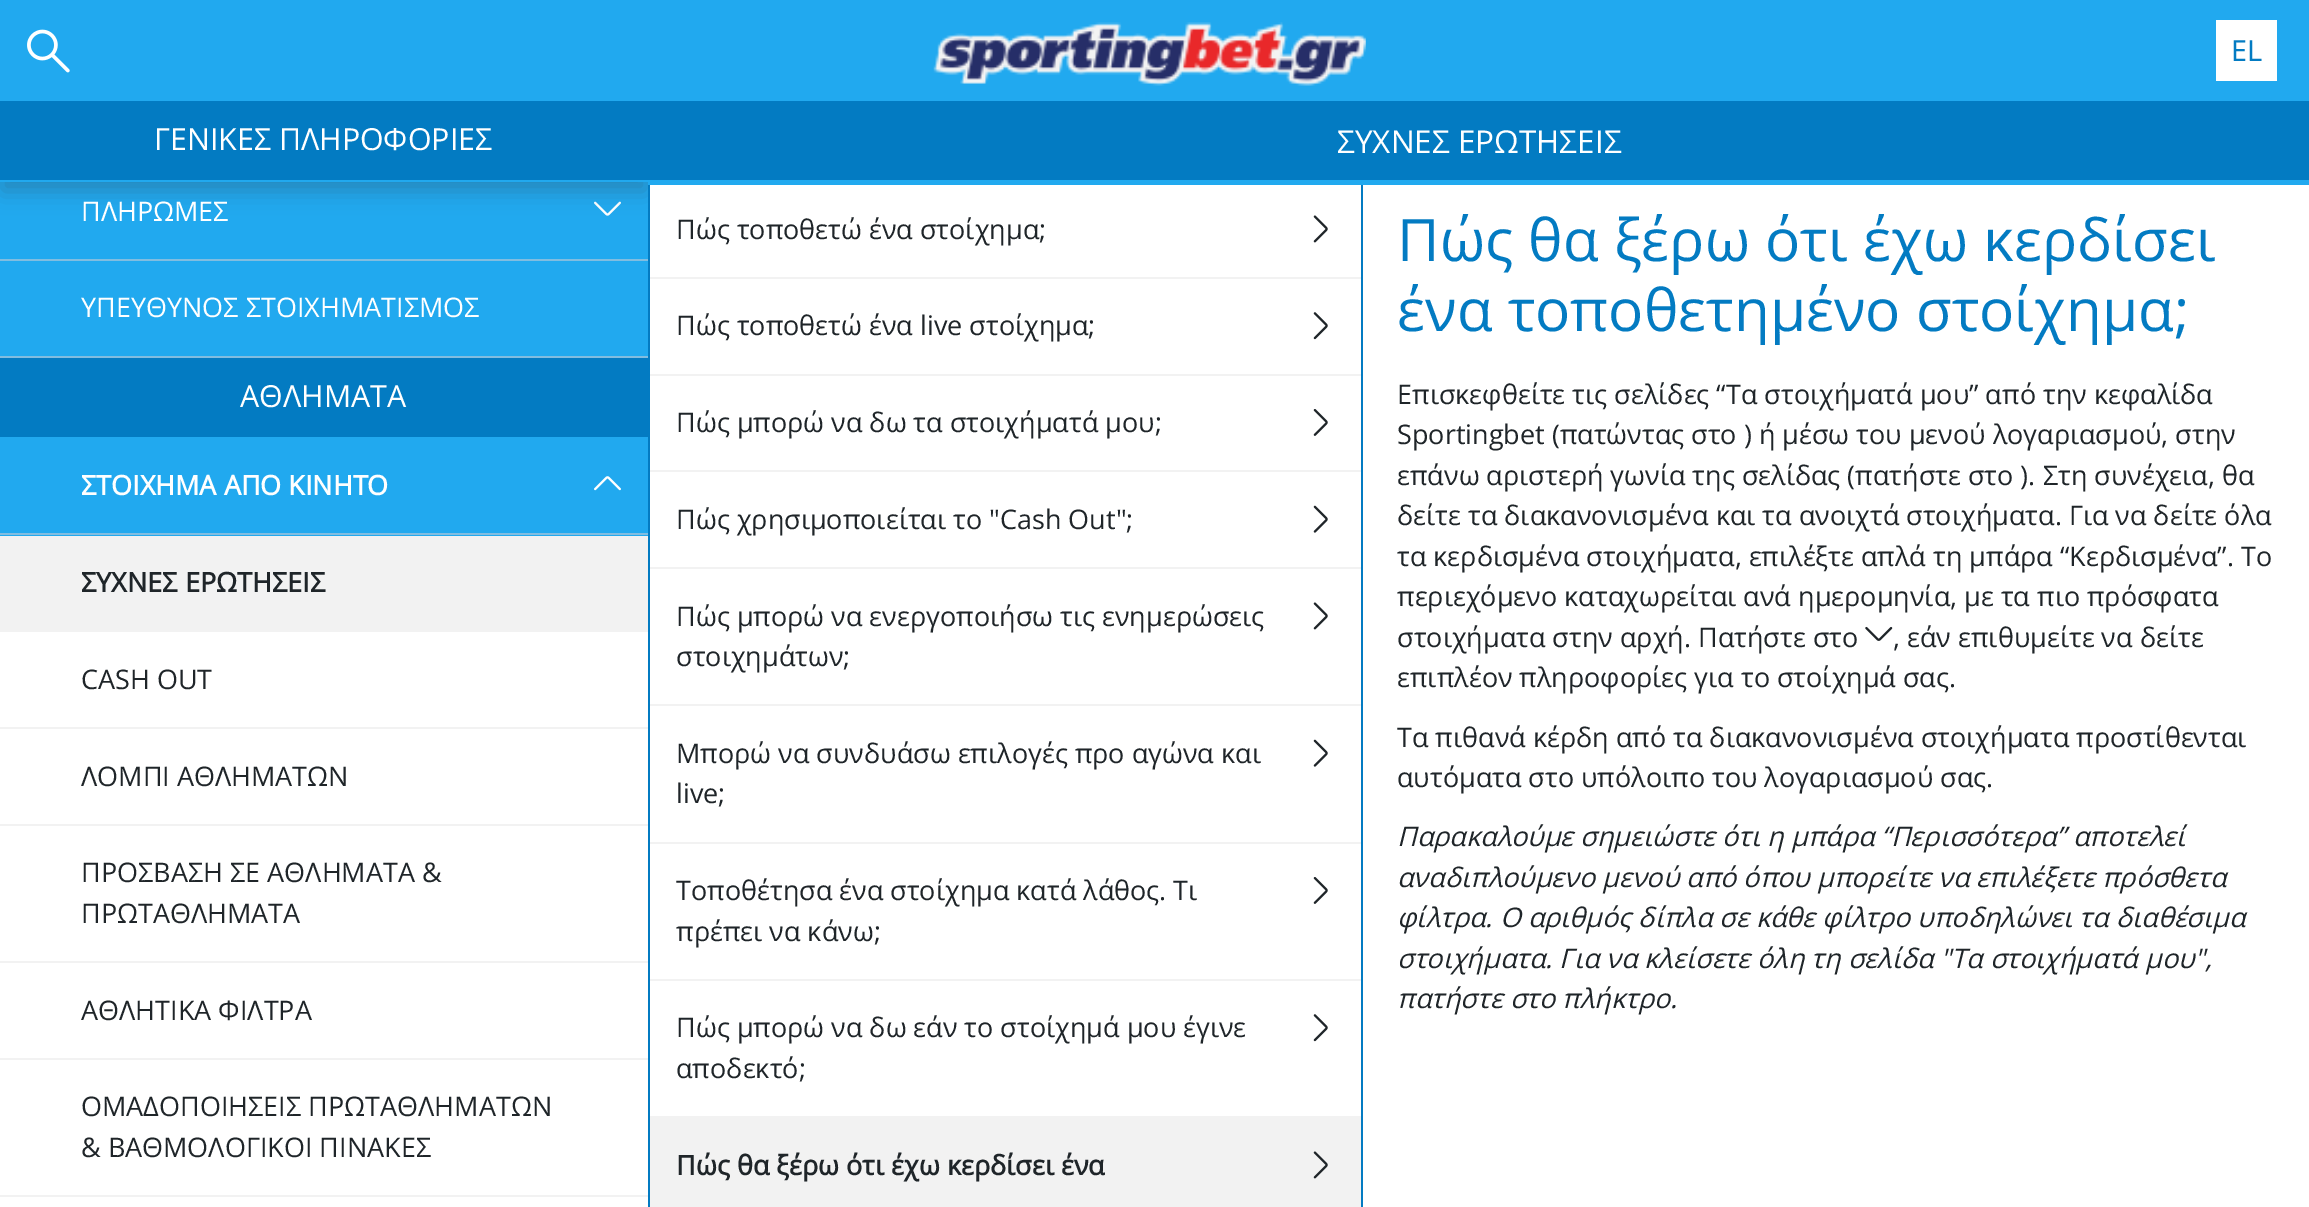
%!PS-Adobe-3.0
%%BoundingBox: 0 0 2309 1207
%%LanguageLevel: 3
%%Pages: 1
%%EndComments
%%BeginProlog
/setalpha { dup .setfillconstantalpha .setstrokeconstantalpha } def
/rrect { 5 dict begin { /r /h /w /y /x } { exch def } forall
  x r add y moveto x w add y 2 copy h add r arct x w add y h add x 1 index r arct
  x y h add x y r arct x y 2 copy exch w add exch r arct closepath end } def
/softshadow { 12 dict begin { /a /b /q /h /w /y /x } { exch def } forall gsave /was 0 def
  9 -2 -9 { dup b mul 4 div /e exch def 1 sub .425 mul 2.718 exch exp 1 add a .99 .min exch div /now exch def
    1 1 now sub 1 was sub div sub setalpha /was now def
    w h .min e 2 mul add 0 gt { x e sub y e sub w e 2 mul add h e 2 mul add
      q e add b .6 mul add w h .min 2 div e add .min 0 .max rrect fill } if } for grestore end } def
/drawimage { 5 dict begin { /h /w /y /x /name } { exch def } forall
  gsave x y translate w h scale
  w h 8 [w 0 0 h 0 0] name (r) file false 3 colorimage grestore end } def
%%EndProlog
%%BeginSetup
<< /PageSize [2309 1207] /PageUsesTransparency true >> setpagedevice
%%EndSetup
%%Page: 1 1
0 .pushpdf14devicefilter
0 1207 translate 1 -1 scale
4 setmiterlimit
1 setgray
0 0 2309 1207 rectfill
0.129 0.663 0.937 setrgbcolor
0 182 648 354 rectfill
(images/3.raw) 594 201 27 15 drawimage
0.012 0.482 0.761 setrgbcolor
648 185 2 1022 rectfill
gsave
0 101 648 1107 rectclip
0.18 0.22 0.247 setrgbcolor
2 115 644 76 0 11 0.3 softshadow
grestore
0.129 0.663 0.937 setrgbcolor
0 0 2309 101 rectfill
(images/1.raw) 27 29 43 44 drawimage
(images/2.raw) 933 22 433 64 drawimage
1 setgray
2216 20 61 61 rectfill
0.012 0.482 0.761 setrgbcolor
0 101 2309 79 rectfill
0.129 0.663 0.937 setrgbcolor
0 180 648 2 rectfill
0.506 0.741 0.878 setrgbcolor
0 259 648 2 rectfill
0 356 648 2 rectfill
0.012 0.482 0.761 setrgbcolor
0 358 648 79 rectfill
(images/4.raw) 594 476 27 15 drawimage
0.506 0.741 0.878 setrgbcolor
0 533 648 2 rectfill
0.949 setgray
0 536 648 96 rectfill
0 727 648 2 rectfill
0 824 648 2 rectfill
0 961 648 2 rectfill
0 1058 648 2 rectfill
0 1195 648 2 rectfill
0.012 0.482 0.761 setrgbcolor
1361 182 2 1025 rectfill
0.129 0.663 0.937 setrgbcolor
648 180 1661 5 rectfill
0.949 setgray
650 277 711 2 rectfill
(images/5.raw) 1313 215 15 28 drawimage
650 374 711 2 rectfill
(images/6.raw) 1313 312 15 28 drawimage
650 470 711 2 rectfill
(images/7.raw) 1313 409 15 27 drawimage
650 567 711 2 rectfill
(images/8.raw) 1313 505 15 28 drawimage
650 704 711 2 rectfill
(images/5.raw) 1313 602 15 28 drawimage
650 842 711 2 rectfill
(images/8.raw) 1313 739 15 28 drawimage
650 979 711 2 rectfill
(images/7.raw) 1313 877 15 27 drawimage
650 1116 711 91 rectfill
(images/6.raw) 1313 1014 15 28 drawimage
(images/9.raw) 1313 1151 15 28 drawimage
(images/10.raw) 1865 626 28 15 drawimage
/OpenSans-Regular [29 0 0 -29 0 0] selectfont
0.012 0.482 0.761 setrgbcolor
2231 61 moveto (EL) show
/OpenSans-Regular [30.4 0 0 -30.4 0 0] selectfont
1 setgray
154 150 moveto (ΓΕΝΙΚΕΣ ΠΛΗΡΟΦΟΡΙΕΣ) show
/OpenSans-Regular [27 0 0 -27 0 0] selectfont
81 221 moveto (ΠΛΗΡΩΜΕΣ) show
81 317 moveto (ΥΠΕΥΘΥΝΟΣ ΣΤΟΙΧΗΜΑΤΙΣΜΟΣ) show
/OpenSans-Regular [30.4 0 0 -30.4 0 0] selectfont
240 407 moveto (ΑΘΛΗΜΑΤΑ) show
/OpenSans-Bold [27 0 0 -27 0 0] selectfont
81 495 moveto (ΣΤΟΙΧΗΜΑ ΑΠΟ ΚΙΝΗΤΟ) show
0.122 0.145 0.161 setrgbcolor
81 592 moveto (ΣΥΧΝΕΣ ΕΡΩΤΗΣΕΙΣ) show
/OpenSans-Regular [27 0 0 -27 0 0] selectfont
81 689 moveto (CASH OUT) show
81 786 moveto (ΛΟΜΠΙ ΑΘΛΗΜΑΤΩΝ) show
81 882 moveto (ΠΡΟΣΒΑΣΗ ΣΕ ΑΘΛΗΜΑΤΑ &) show
81 923 moveto (ΠΡΩΤΑΘΛΗΜΑΤΑ) show
81 1020 moveto (ΑΘΛΗΤΙΚΑ ΦΙΛΤΡΑ) show
81 1116 moveto (ΟΜΑΔΟΠΟΙΗΣΕΙΣ ΠΡΩΤΑΘΛΗΜΑΤΩΝ) show
81 1157 moveto (& ΒΑΘΜΟΛΟΓΙΚΟΙ ΠΙΝΑΚΕΣ) show
/OpenSans-Regular [31.5 0 0 -31.5 0 0] selectfont
1 setgray
1337 153 moveto (ΣΥΧΝΕΣ ΕΡΩΤΗΣΕΙΣ) show
/OpenSans-Regular [27 0 0 -27 0 0] selectfont
0.122 0.145 0.161 setrgbcolor
676 239 moveto (Πώς τοποθετώ ένα στοίχημα;) show
676 335 moveto (Πώς τοποθετώ ένα live στοίχημα;) show
676 432 moveto (Πώς μπορώ να δω τα στοιχήματά μου;) show
676 529 moveto (Πώς χρησιμοποιείται το "Cash Out";) show
676 626 moveto (Πώς μπορώ να ενεργοποιήσω τις ενημερώσεις) show
676 666 moveto (στοιχημάτων;) show
676 763 moveto (Μπορώ να συνδυάσω επιλογές προ αγώνα και) show
676 803 moveto (live;) show
676 900 moveto (Τοποθέτησα ένα στοίχημα κατά λάθος. Τι) show
676 941 moveto (πρέπει να κάνω;) show
676 1037 moveto (Πώς μπορώ να δω εάν το στοίχημά μου έγινε) show
676 1078 moveto (αποδεκτό;) show
/OpenSans-Bold [27 0 0 -27 0 0] selectfont
676 1175 moveto (Πώς θα ξέρω ότι έχω κερδίσει ένα) show
/OpenSans-Regular [58.5 0 0 -58.5 0 0] selectfont
0.012 0.482 0.761 setrgbcolor
1397 261 moveto (Πώς θα ξέρω ότι έχω κερδίσει) show
1397 331 moveto (ένα τοποθετημένο στοίχημα;) show
/OpenSans-Regular [27 0 0 -27 0 0] selectfont
0.122 0.145 0.161 setrgbcolor
1397 404 moveto (Επισκεφθείτε τις σελίδες “Τα στοιχήματά μου” από την κεφαλίδα) show
1397 444 moveto (Sportingbet \(πατώντας στο \) ή μέσω του μενού λογαριασμού, στην) show
1397 485 moveto (επάνω αριστερή γωνία της σελίδας \(πατήστε στο \). Στη συνέχεια, θα) show
1397 525 moveto (δείτε τα διακανονισμένα και τα ανοιχτά στοιχήματα. Για να δείτε όλα) show
1397 566 moveto (τα κερδισμένα στοιχήματα, επιλέξτε απλά τη μπάρα “Κερδισμένα”. Το) show
1397 606 moveto (περιεχόμενο καταχωρείται ανά ημερομηνία, με τα πιο πρόσφατα) show
1397 647 moveto (στοιχήματα στην αρχή. Πατήστε στο) show
1893 647 moveto (, εάν επιθυμείτε να δείτε) show
1397 687 moveto (επιπλέον πληροφορίες για το στοίχημά σας.) show
1397 747 moveto (Τα πιθανά κέρδη από τα διακανονισμένα στοιχήματα προστίθενται) show
1397 787 moveto (αυτόματα στο υπόλοιπο του λογαριασμού σας.) show
/OpenSans-Italic [27 0 0 -27 0 0] selectfont
1397 846 moveto (Παρακαλούμε σημειώστε ότι η μπάρα “Περισσότερα” αποτελεί) show
1397 887 moveto (αναδιπλούμενο μενού από όπου μπορείτε να επιλέξετε πρόσθετα) show
1397 927 moveto (φίλτρα. Ο αριθμός δίπλα σε κάθε φίλτρο υποδηλώνει τα διαθέσιμα) show
1397 968 moveto (στοιχήματα. Για να κλείσετε όλη τη σελίδα "Τα στοιχήματά μου",) show
1397 1008 moveto (πατήστε στο πλήκτρο.) show
.poppdf14devicefilter showpage
%%EOF
